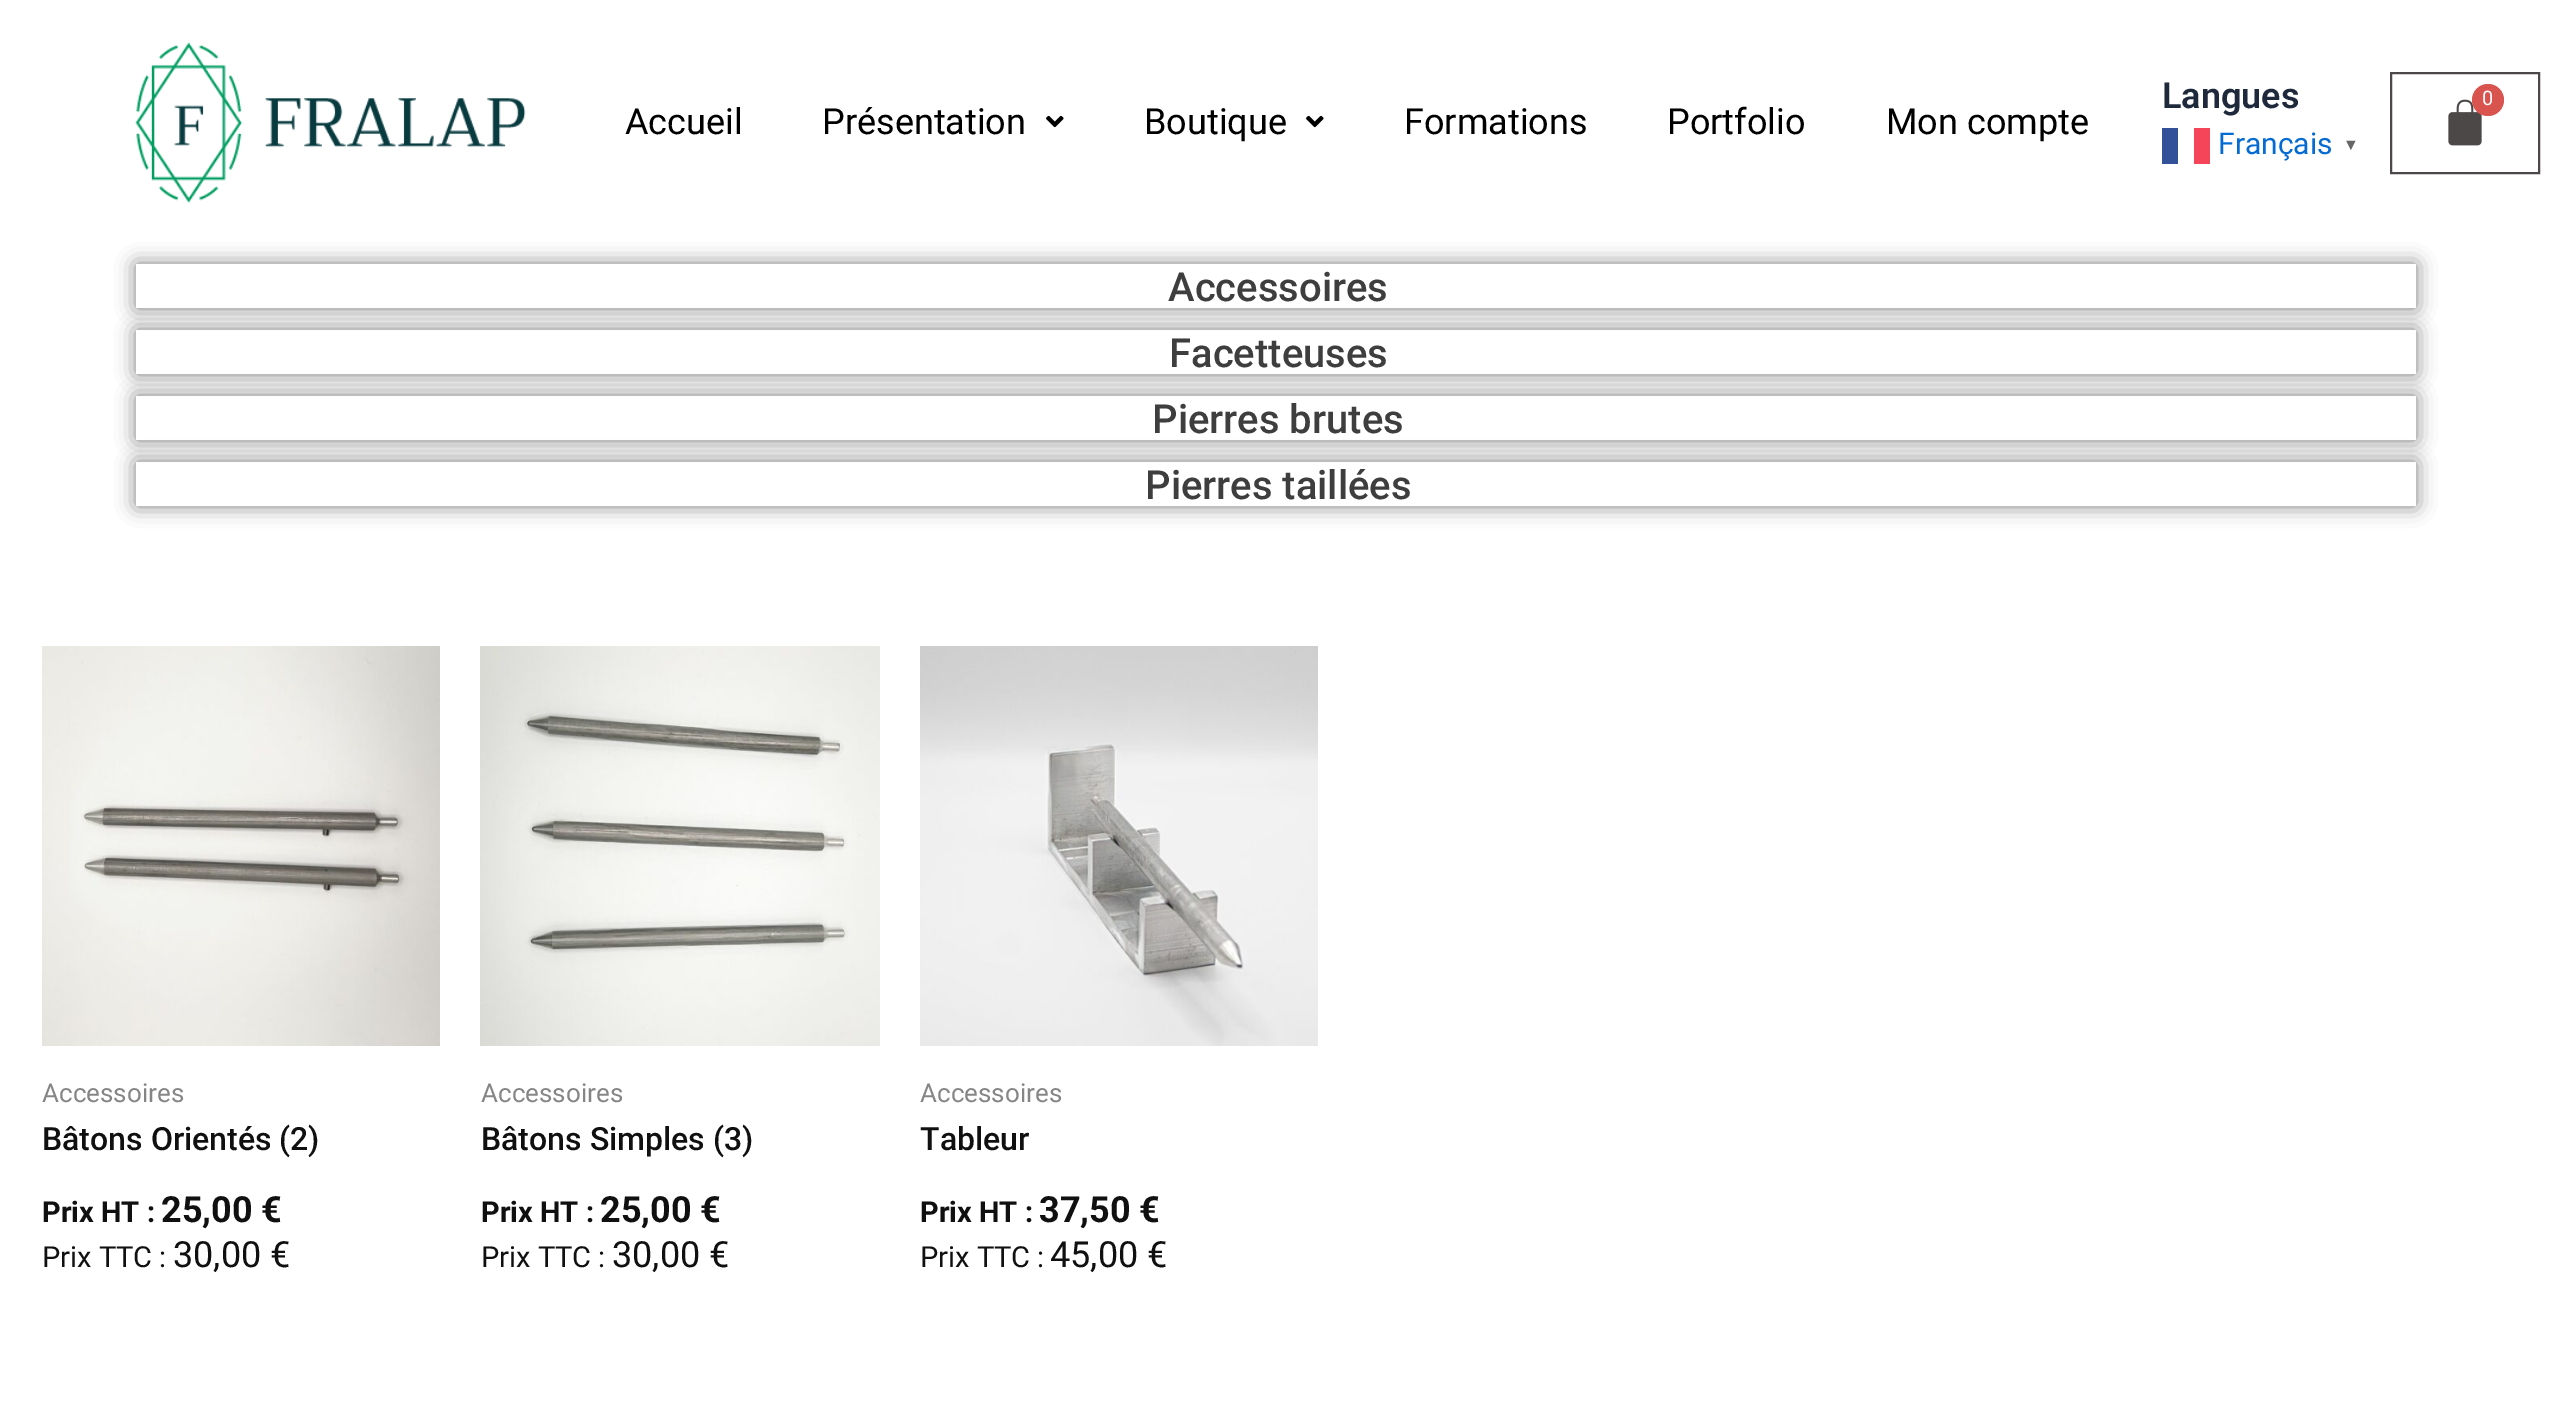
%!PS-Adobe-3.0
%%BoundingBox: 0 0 2551 1428
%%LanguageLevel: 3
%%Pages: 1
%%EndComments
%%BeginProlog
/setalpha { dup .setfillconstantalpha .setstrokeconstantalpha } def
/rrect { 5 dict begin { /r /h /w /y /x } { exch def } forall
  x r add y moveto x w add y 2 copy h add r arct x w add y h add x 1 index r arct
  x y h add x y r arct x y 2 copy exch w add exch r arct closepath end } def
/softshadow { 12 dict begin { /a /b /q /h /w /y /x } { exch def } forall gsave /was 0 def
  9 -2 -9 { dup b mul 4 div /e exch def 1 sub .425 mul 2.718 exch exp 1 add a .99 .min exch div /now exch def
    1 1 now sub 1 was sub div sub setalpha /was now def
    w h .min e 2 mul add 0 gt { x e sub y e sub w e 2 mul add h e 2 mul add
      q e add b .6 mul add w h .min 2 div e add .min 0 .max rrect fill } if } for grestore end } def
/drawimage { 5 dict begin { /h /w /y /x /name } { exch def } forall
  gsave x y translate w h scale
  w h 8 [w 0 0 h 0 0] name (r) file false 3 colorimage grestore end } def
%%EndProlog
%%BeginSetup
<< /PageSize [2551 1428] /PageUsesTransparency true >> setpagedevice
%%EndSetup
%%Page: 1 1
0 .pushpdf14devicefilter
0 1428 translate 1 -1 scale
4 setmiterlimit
1 setgray
0 0 2551 1428 rectfill
(images/1.raw) 135 42 391 161 drawimage
0.2 0.318 0.6 setrgbcolor
2162 128 16 36 rectfill
0.961 0.275 0.349 setrgbcolor
2194 128 16 36 rectfill
0.302 0.282 0.282 setrgbcolor
2 setlinewidth
2391 73 148 100 rectstroke
(images/2.raw) 2448 99 34 47 drawimage
0.851 0.325 0.31 setrgbcolor
newpath 2488 100 16 0 360 arc closepath fill
(images/3.raw) 1046 115 18 13 drawimage
(images/3.raw) 1306 115 18 13 drawimage
gsave
newpath 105 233 moveto 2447 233 lineto 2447 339 lineto 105 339 lineto closepath 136 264 moveto 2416 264 lineto 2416 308 lineto 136 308 lineto closepath eoclip newpath
0 setgray
136 264 2280 44 0 10 0.5 softshadow
grestore
gsave
newpath 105 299 moveto 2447 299 lineto 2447 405 lineto 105 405 lineto closepath 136 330 moveto 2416 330 lineto 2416 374 lineto 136 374 lineto closepath eoclip newpath
0 setgray
136 330 2280 44 0 10 0.5 softshadow
grestore
gsave
newpath 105 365 moveto 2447 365 lineto 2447 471 lineto 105 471 lineto closepath 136 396 moveto 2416 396 lineto 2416 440 lineto 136 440 lineto closepath eoclip newpath
0 setgray
136 396 2280 44 0 10 0.5 softshadow
grestore
gsave
newpath 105 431 moveto 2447 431 lineto 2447 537 lineto 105 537 lineto closepath 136 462 moveto 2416 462 lineto 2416 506 lineto 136 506 lineto closepath eoclip newpath
0 setgray
136 462 2280 44 0 10 0.5 softshadow
grestore
(images/4.raw) 42 646 398 400 drawimage
(images/5.raw) 480 646 400 400 drawimage
(images/6.raw) 920 646 398 400 drawimage
/Roboto-SemiBold [36 0 0 -36 0 0] selectfont
0.118 0.161 0.231 setrgbcolor
2162 108 moveto (Langues) show
/Roboto-Regular [30 0 0 -30 0 0] selectfont
0.016 0.42 0.824 setrgbcolor
2218 154 moveto (Français) show
/LiberationSans-Bold [16 0 0 -16 0 0] selectfont
0.4 setgray
2343 150 moveto (▼) show
/Roboto-Regular [20 0 0 -20 0 0] selectfont
1 setgray
2482 105 moveto (0) show
/Roboto-Regular [36 0 0 -36 0 0] selectfont
0 setgray
625 134 moveto (Accueil) show
822 134 moveto (Présentation) show
1144 134 moveto (Boutique) show
1404 134 moveto (Formations) show
1667 134 moveto (Portfolio) show
1886 134 moveto (Mon compte) show
/Roboto-Medium [40 0 0 -40 0 0] selectfont
0.243 setgray
1168 301 moveto (Accessoires) show
1169 367 moveto (Facetteuses) show
1152 433 moveto (Pierres brutes) show
1145 499 moveto (Pierres taillées) show
/Roboto-Regular [26 0 0 -26 0 0] selectfont
0.522 setgray
42 1102 moveto (Accessoires) show
/Roboto-Medium [32 0 0 -32 0 0] selectfont
0.063 setgray
42 1150 moveto (Bâtons Orientés \(2\)) show
/Roboto-Bold [29 0 0 -29 0 0] selectfont
42 1222 moveto (Prix HT :) show
/Roboto-Bold [36 0 0 -36 0 0] selectfont
161 1222 moveto (25,00 €) show
/Roboto-Regular [29 0 0 -29 0 0] selectfont
42 1267 moveto (Prix TTC :) show
/Roboto-Regular [36 0 0 -36 0 0] selectfont
173 1267 moveto (30,00 €) show
/Roboto-Regular [26 0 0 -26 0 0] selectfont
0.522 setgray
481 1102 moveto (Accessoires) show
/Roboto-Medium [32 0 0 -32 0 0] selectfont
0.063 setgray
481 1150 moveto (Bâtons Simples \(3\)) show
/Roboto-Bold [29 0 0 -29 0 0] selectfont
481 1222 moveto (Prix HT :) show
/Roboto-Bold [36 0 0 -36 0 0] selectfont
600 1222 moveto (25,00 €) show
/Roboto-Regular [29 0 0 -29 0 0] selectfont
481 1267 moveto (Prix TTC :) show
/Roboto-Regular [36 0 0 -36 0 0] selectfont
612 1267 moveto (30,00 €) show
/Roboto-Regular [26 0 0 -26 0 0] selectfont
0.522 setgray
920 1102 moveto (Accessoires) show
/Roboto-Medium [32 0 0 -32 0 0] selectfont
0.063 setgray
920 1150 moveto (Tableur) show
/Roboto-Bold [29 0 0 -29 0 0] selectfont
920 1222 moveto (Prix HT :) show
/Roboto-Bold [36 0 0 -36 0 0] selectfont
1039 1222 moveto (37,50 €) show
/Roboto-Regular [29 0 0 -29 0 0] selectfont
920 1267 moveto (Prix TTC :) show
/Roboto-Regular [36 0 0 -36 0 0] selectfont
1050 1267 moveto (45,00 €) show
.poppdf14devicefilter showpage
%%EOF
